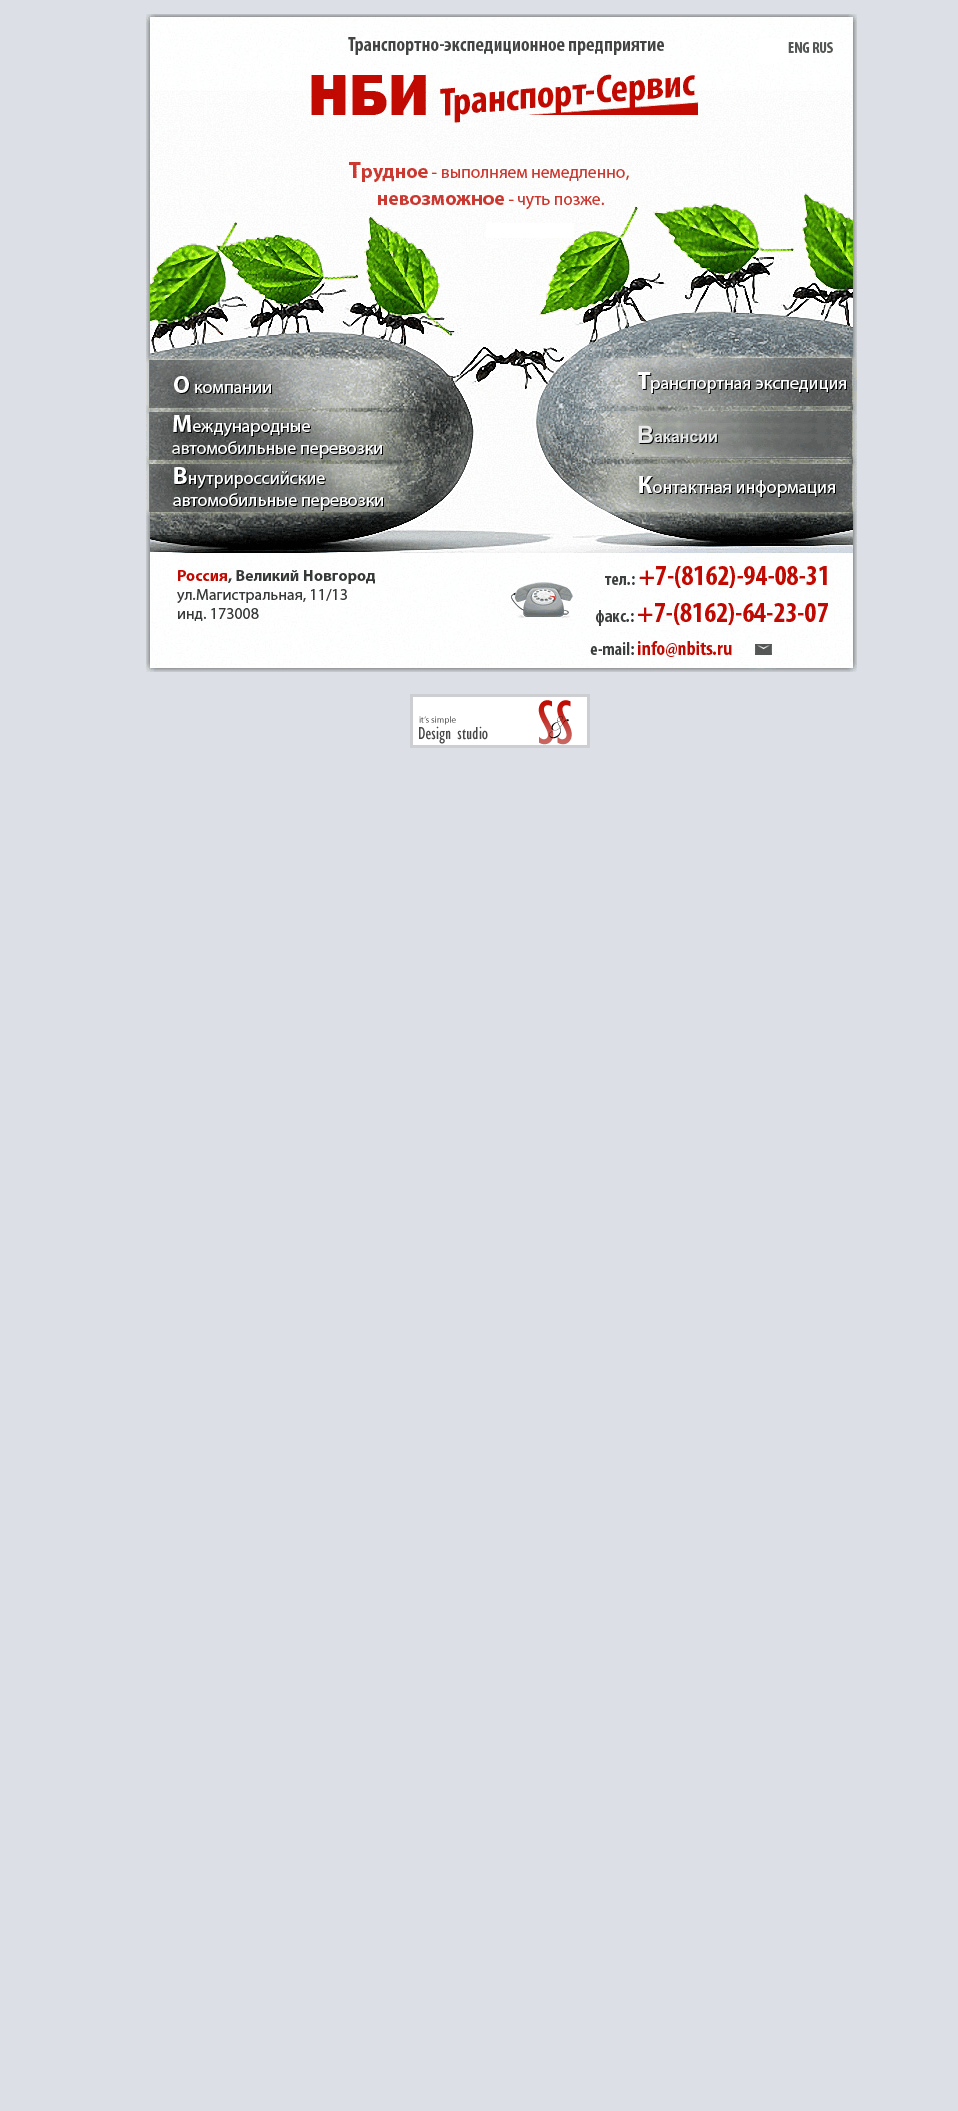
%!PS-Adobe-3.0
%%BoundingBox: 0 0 958 2111
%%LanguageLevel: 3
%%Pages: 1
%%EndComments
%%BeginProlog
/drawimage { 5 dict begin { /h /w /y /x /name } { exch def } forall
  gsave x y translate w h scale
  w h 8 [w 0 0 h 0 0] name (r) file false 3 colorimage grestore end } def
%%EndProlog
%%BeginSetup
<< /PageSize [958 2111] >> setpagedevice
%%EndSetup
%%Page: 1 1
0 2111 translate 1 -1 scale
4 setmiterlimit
0.863 0.875 0.902 setrgbcolor
0 0 958 2111 rectfill
(images/1.raw) 146 14 711 658 drawimage
(images/2.raw) 410 694 180 54 drawimage
showpage
%%EOF
